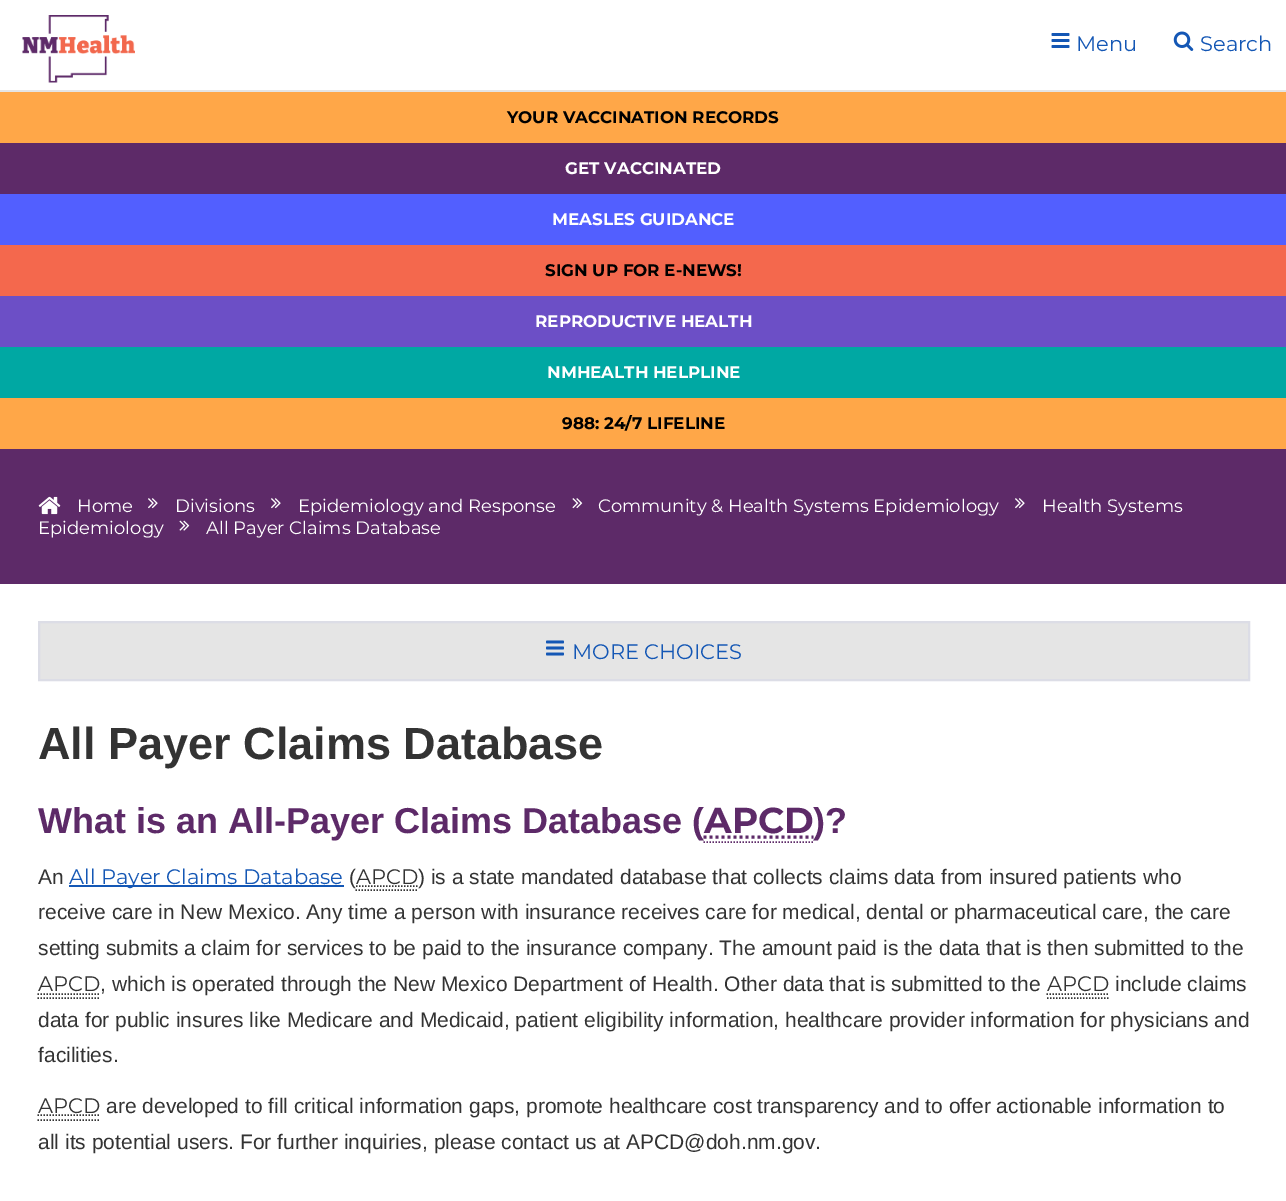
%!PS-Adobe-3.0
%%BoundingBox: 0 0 1286 1201
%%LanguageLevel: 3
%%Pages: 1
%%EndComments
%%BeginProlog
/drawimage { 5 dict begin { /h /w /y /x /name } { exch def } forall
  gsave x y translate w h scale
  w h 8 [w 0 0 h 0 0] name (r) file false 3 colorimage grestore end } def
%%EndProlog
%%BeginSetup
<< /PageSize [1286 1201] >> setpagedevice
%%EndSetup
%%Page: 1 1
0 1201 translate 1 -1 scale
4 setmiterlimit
1 setgray
0 0 1286 1201 rectfill
0.898 setgray
0 90 1286 2 rectfill
(images/1.raw) 22 15 113 68 drawimage
(images/2.raw) 1051 33 19 15 drawimage
(images/3.raw) 1173 31 21 20 drawimage
0.365 0.165 0.408 setrgbcolor
0 449 1286 135 rectfill
(images/4.raw) 38 496 23 19 drawimage
(images/5.raw) 148 498 10 11 drawimage
(images/5.raw) 271 498 10 11 drawimage
(images/6.raw) 572 498 11 11 drawimage
(images/5.raw) 1015 498 10 11 drawimage
(images/7.raw) 179 520 11 11 drawimage
0.898 setgray
newpath 39 622 moveto 1249 622 lineto 1249 680 lineto 39 680 lineto closepath gsave fill grestore
0.863 0.867 0.902 setrgbcolor
2 setlinewidth
stroke
(images/8.raw) 546 640 18 16 drawimage
0.365 0.165 0.408 setrgbcolor
1.5 setlinewidth
[1.5 1.5] 0 setdash
newpath 703.5 842 moveto 813 842 lineto stroke
3 setlinewidth
[3 3] 0 setdash
newpath 703.5 837 moveto 813.5 837 lineto stroke
0.078 0.341 0.71 setrgbcolor
69 885 275 2 rectfill
0.2 setgray
1.5 setlinewidth
[1.5 1.5] 0 setdash
newpath 355.5 890 moveto 418.5 890 lineto 356 886 moveto 418.5 886 lineto stroke
newpath 37.5 998 moveto 100.5 998 lineto 37.5 994 moveto 100 994 lineto stroke
newpath 1047 998 moveto 1108.5 998 lineto 1046.5 994 moveto 1109 994 lineto stroke
newpath 37.5 1120 moveto 100.5 1120 lineto 37.5 1115 moveto 100 1115 lineto stroke
1 0.655 0.282 setrgbcolor
0 92 1286 51 rectfill
0.365 0.165 0.408 setrgbcolor
0 143 1286 51 rectfill
0.322 0.373 1 setrgbcolor
0 194 1286 51 rectfill
0.957 0.408 0.302 setrgbcolor
0 245 1286 51 rectfill
0.424 0.31 0.776 setrgbcolor
0 296 1286 51 rectfill
0 0.659 0.639 setrgbcolor
0 347 1286 51 rectfill
1 0.655 0.282 setrgbcolor
0 398 1286 51 rectfill
/Montserrat-Regular [21 0 0 -21 0 0] selectfont
0.078 0.341 0.71 setrgbcolor
1076 51 moveto (Menu) show
1200 51 moveto (Search) show
/Montserrat-Regular [18 0 0 -18 0 0] selectfont
1 setgray
77 512 moveto (Home) show
175 512 moveto (Divisions) show
298 512 moveto (Epidemiology and Response) show
598 512 moveto (Community & Health Systems Epidemiology) show
1042 512 moveto (Health Systems) show
38 534 moveto (Epidemiology) show
206 534 moveto (All Payer Claims Database) show
/Montserrat-Regular [21 0 0 -21 0 0] selectfont
0.078 0.341 0.71 setrgbcolor
572 659 moveto (MORE CHOICES) show
/LiberationSans-Bold [45 0 0 -45 0 0] selectfont
0.2 setgray
38 759 moveto (All Payer Claims Database) show
/LiberationSans-Bold [36 0 0 -36 0 0] selectfont
0.365 0.165 0.408 setrgbcolor
38 833 moveto (What is an All-Payer Claims Database \() show
/Montserrat-Bold [36 0 0 -36 0 0] selectfont
704 833 moveto (APCD) show
/LiberationSans-Bold [36 0 0 -36 0 0] selectfont
813 833 moveto (\)?) show
/LiberationSans-Regular [21 0 0 -21 0 0] selectfont
0.2 setgray
38 884 moveto (An) show
/Montserrat-Regular [21 0 0 -21 0 0] selectfont
0.078 0.341 0.71 setrgbcolor
69 884 moveto (All Payer Claims Database) show
/LiberationSans-Regular [21 0 0 -21 0 0] selectfont
0.2 setgray
349 884 moveto (\() show
/Montserrat-Regular [21 0 0 -21 0 0] selectfont
356 884 moveto (APCD) show
/LiberationSans-Regular [21 0 0 -21 0 0] selectfont
418 884 moveto (\) is a state mandated database that collects claims data from insured patients who) show
38 919 moveto (receive care in New Mexico. Any time a person with insurance receives care for medical, dental or pharmaceutical care, the care) show
38 955 moveto (setting submits a claim for services to be paid to the insurance company. The amount paid is the data that is then submitted to the) show
/Montserrat-Regular [21 0 0 -21 0 0] selectfont
38 991 moveto (APCD) show
/LiberationSans-Regular [21 0 0 -21 0 0] selectfont
100 991 moveto (, which is operated through the New Mexico Department of Health. Other data that is submitted to the) show
/Montserrat-Regular [21 0 0 -21 0 0] selectfont
1047 991 moveto (APCD) show
/LiberationSans-Regular [21 0 0 -21 0 0] selectfont
1115 991 moveto (include claims) show
38 1027 moveto (data for public insures like Medicare and Medicaid, patient eligibility information, healthcare provider information for physicians and) show
38 1062 moveto (facilities.) show
/Montserrat-Regular [21 0 0 -21 0 0] selectfont
38 1113 moveto (APCD) show
/LiberationSans-Regular [21 0 0 -21 0 0] selectfont
106 1113 moveto (are developed to fill critical information gaps, promote healthcare cost transparency and to offer actionable information to) show
38 1149 moveto (all its potential users. For further inquiries, please contact us at APCD@doh.nm.gov.) show
/Montserrat-Bold [16.75 0 0 -16.75 0 0] selectfont
0 setgray
507 123 moveto (YOUR VACCINATION RECORDS) show
1 setgray
565 174 moveto (GET VACCINATED) show
552 225 moveto (MEASLES GUIDANCE) show
0 setgray
545 276 moveto (SIGN UP FOR E-NEWS!) show
1 setgray
535 327 moveto (REPRODUCTIVE HEALTH) show
547 378 moveto (NMHEALTH HELPLINE) show
0 setgray
562 429 moveto (988: 24/7 LIFELINE) show
showpage
%%EOF
